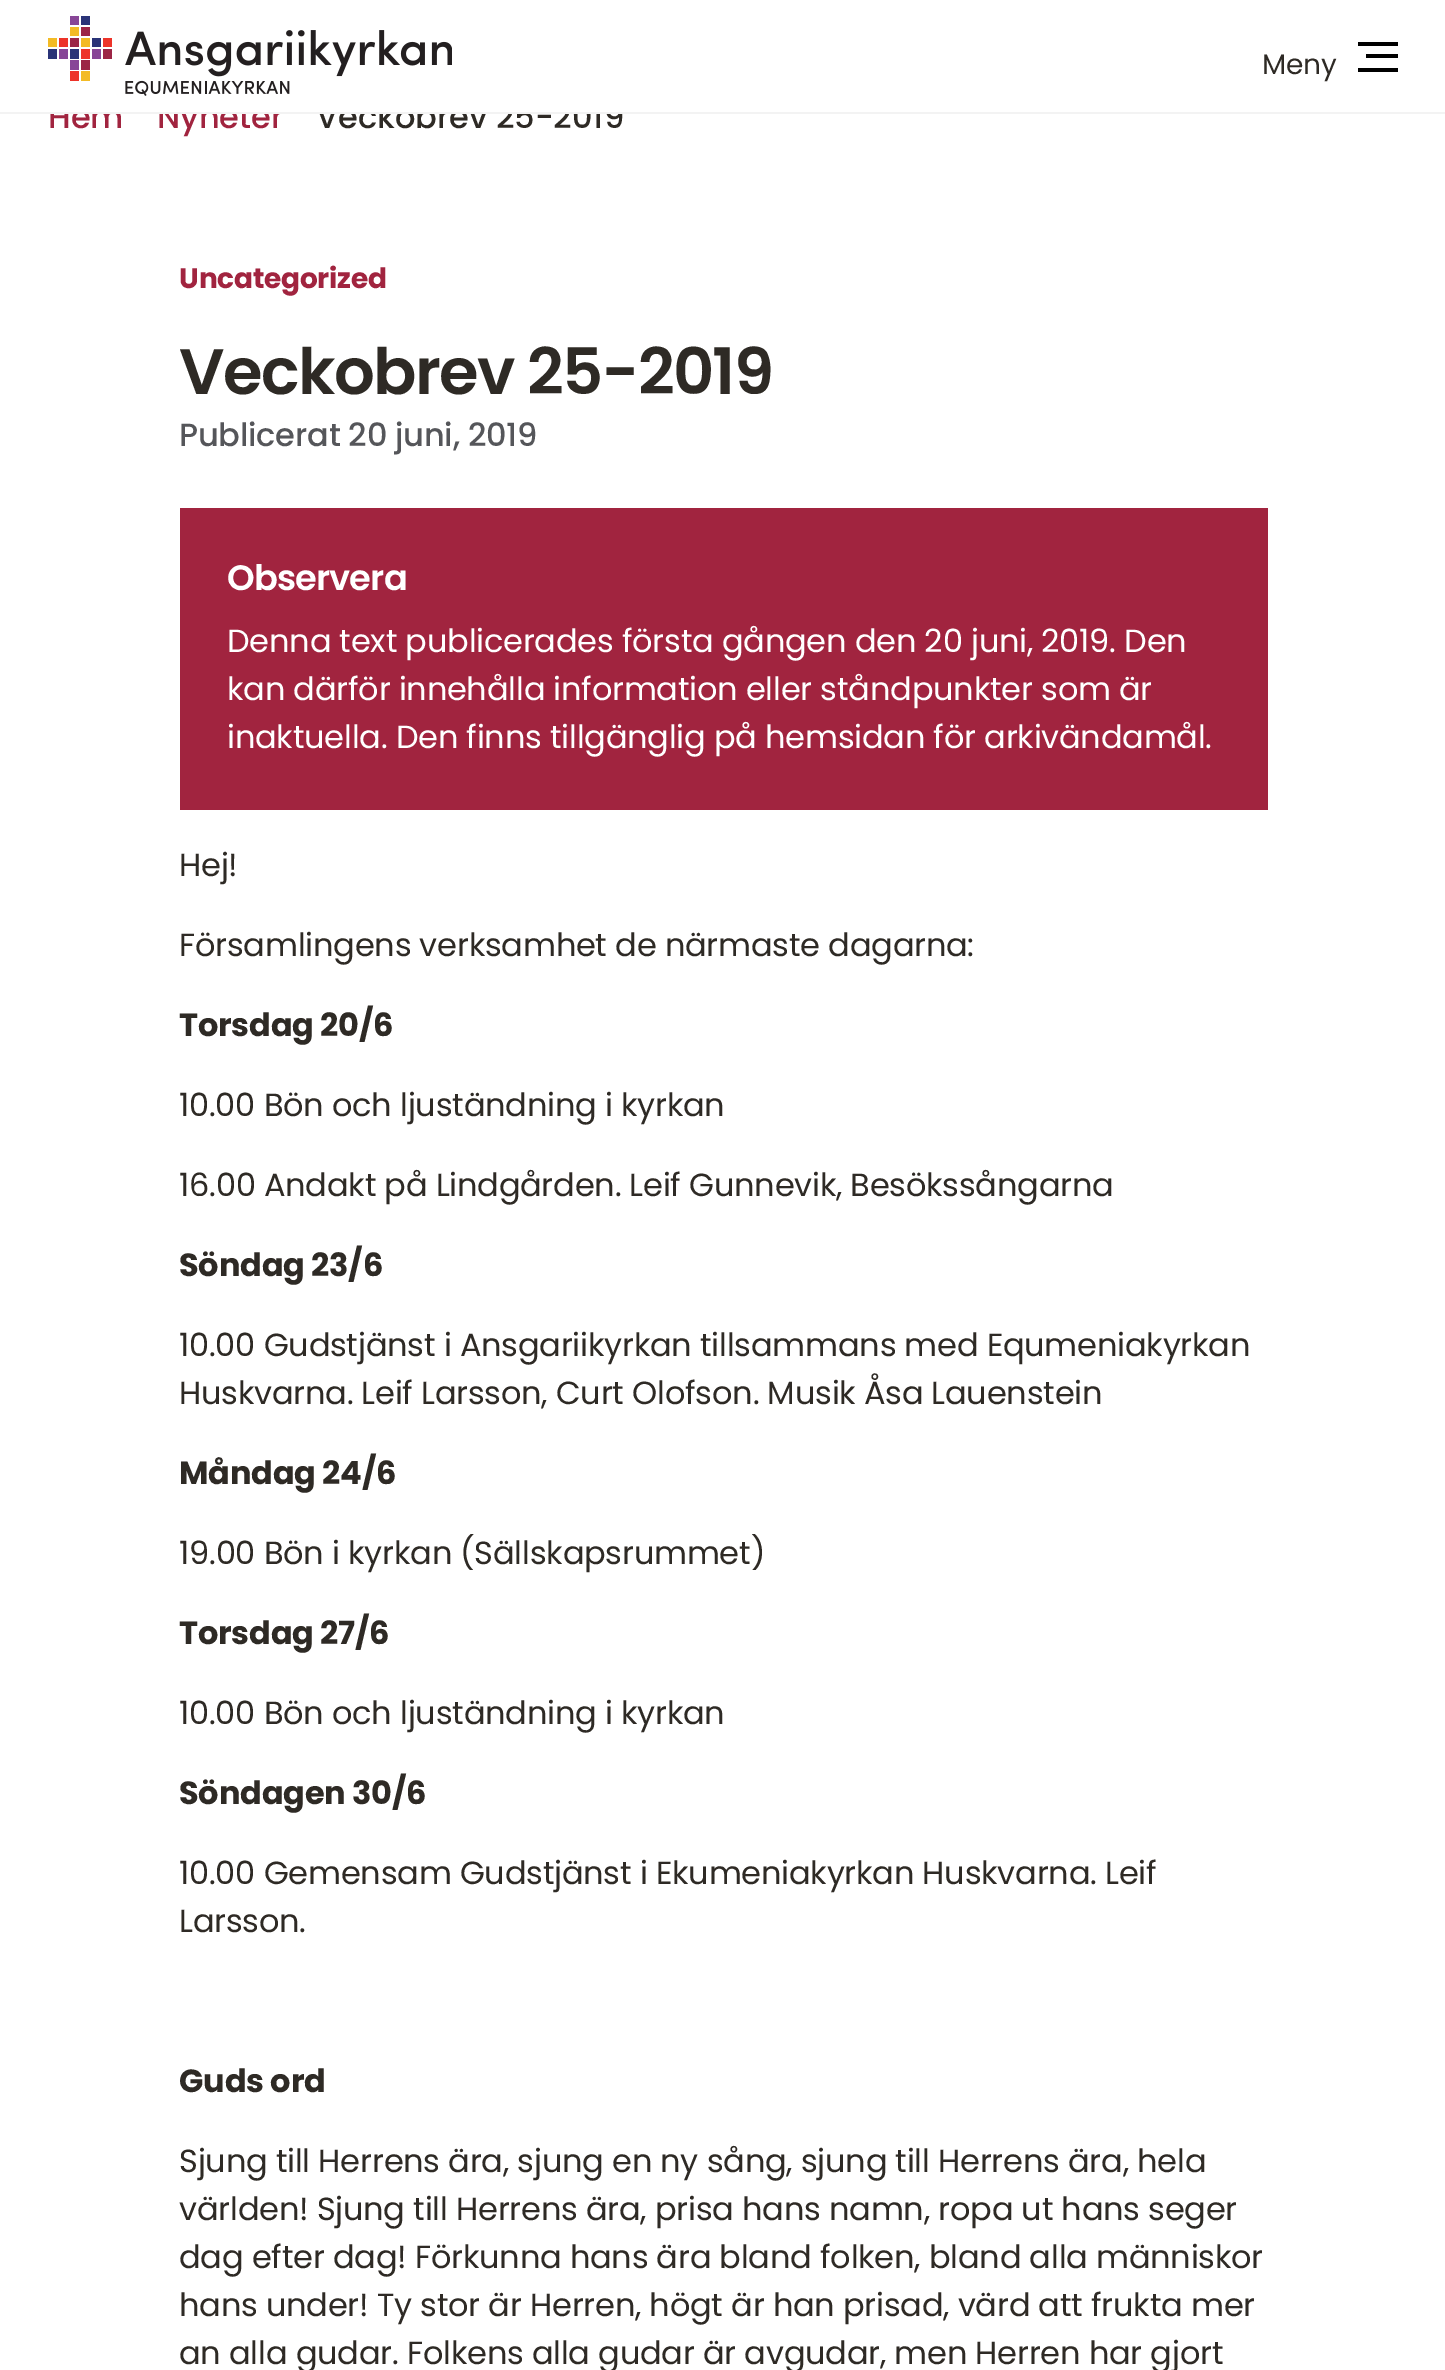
%!PS-Adobe-3.0
%%BoundingBox: 0 0 1445 2370
%%LanguageLevel: 3
%%Pages: 1
%%EndComments
%%BeginProlog
/drawimage { 5 dict begin { /h /w /y /x /name } { exch def } forall
  gsave x y translate w h scale
  w h 8 [w 0 0 h 0 0] name (r) file false 3 colorimage grestore end } def
%%EndProlog
%%BeginSetup
<< /PageSize [1445 2370] >> setpagedevice
%%EndSetup
%%Page: 1 1
0 2370 translate 1 -1 scale
4 setmiterlimit
1 setgray
0 0 1445 2370 rectfill
(images/1.raw) 48 16 404 80 drawimage
0 setgray
1358 42 40 4 rectfill
1366 54 32 4 rectfill
1358 68 40 4 rectfill
0.631 0.141 0.247 setrgbcolor
180 508 1088 302 rectfill
/Poppins-Regular [28 0 0 -28 0 0] selectfont
0.18 0.165 0.145 setrgbcolor
1262 74 moveto (Meny) show
/Poppins-Medium [32 0 0 -32 0 0] selectfont
0.631 0.141 0.247 setrgbcolor
48 128 moveto (Hem) show
157 128 moveto (Nyheter) show
0.18 0.165 0.145 setrgbcolor
316 128 moveto (Veckobrev 25-2019) show
0.953 setgray
0 112 1445 2 rectfill
1 setgray
50 104 572 8 rectfill
/Poppins-Bold [28 0 0 -28 0 0] selectfont
0.631 0.141 0.247 setrgbcolor
179 288 moveto -0.2 0 (Uncategorized) ashow
/Poppins-SemiBold [64 0 0 -64 0 0] selectfont
0.18 0.165 0.145 setrgbcolor
179 394 moveto -1.6 0 (Veckobrev 25-2019) ashow
/Poppins-Medium [32 0 0 -32 0 0] selectfont
0.333 0.337 0.353 setrgbcolor
179 446 moveto -0.2 0 (Publicerat 20 juni, 2019) ashow
/Poppins-SemiBold [35.25 0 0 -35.25 0 0] selectfont
1 setgray
227 590 moveto -0.9 0 (Observera) ashow
/Poppins-Regular [32 0 0 -32 0 0] selectfont
227 652 moveto -0.2 0 (Denna text publicerades första gången den 20 juni, 2019. Den) ashow
227 700 moveto -0.2 0 (kan därför innehålla information eller ståndpunkter som är) ashow
227 748 moveto -0.2 0 (inaktuella. Den finns tillgänglig på hemsidan för arkivändamål.) ashow
0.18 0.165 0.145 setrgbcolor
179 876 moveto -0.2 0 (Hej!) ashow
179 956 moveto -0.2 0 (Församlingens verksamhet de närmaste dagarna:) ashow
/Poppins-Bold [32 0 0 -32 0 0] selectfont
179 1036 moveto -0.2 0 (Torsdag 20/6) ashow
/Poppins-Regular [32 0 0 -32 0 0] selectfont
179 1116 moveto -0.2 0 (10.00 Bön och ljuständning i kyrkan) ashow
179 1196 moveto -0.2 0 (16.00 Andakt på Lindgården. Leif Gunnevik, Besökssångarna) ashow
/Poppins-Bold [32 0 0 -32 0 0] selectfont
179 1276 moveto -0.2 0 (Söndag 23/6) ashow
/Poppins-Regular [32 0 0 -32 0 0] selectfont
179 1356 moveto -0.2 0 (10.00 Gudstjänst i Ansgariikyrkan tillsammans med Equmeniakyrkan) ashow
179 1404 moveto -0.2 0 (Huskvarna. Leif Larsson, Curt Olofson. Musik Åsa Lauenstein) ashow
/Poppins-Bold [32 0 0 -32 0 0] selectfont
179 1484 moveto -0.2 0 (Måndag 24/6) ashow
/Poppins-Regular [32 0 0 -32 0 0] selectfont
179 1564 moveto -0.2 0 (19.00 Bön i kyrkan \(Sällskapsrummet\)) ashow
/Poppins-Bold [32 0 0 -32 0 0] selectfont
179 1644 moveto -0.2 0 (Torsdag 27/6) ashow
/Poppins-Regular [32 0 0 -32 0 0] selectfont
179 1724 moveto -0.2 0 (10.00 Bön och ljuständning i kyrkan) ashow
/Poppins-Bold [32 0 0 -32 0 0] selectfont
179 1804 moveto -0.2 0 (Söndagen 30/6) ashow
/Poppins-Regular [32 0 0 -32 0 0] selectfont
179 1884 moveto -0.2 0 (10.00 Gemensam Gudstjänst i Ekumeniakyrkan Huskvarna. Leif) ashow
179 1932 moveto -0.2 0 (Larsson.) ashow
/Poppins-Bold [32 0 0 -32 0 0] selectfont
179 2092 moveto -0.2 0 (Guds ord) ashow
/Poppins-Regular [32 0 0 -32 0 0] selectfont
179 2172 moveto -0.2 0 (Sjung till Herrens ära, sjung en ny sång, sjung till Herrens ära, hela) ashow
179 2220 moveto -0.2 0 (världen! Sjung till Herrens ära, prisa hans namn, ropa ut hans seger) ashow
179 2268 moveto -0.2 0 (dag efter dag! Förkunna hans ära bland folken, bland alla människor) ashow
179 2316 moveto -0.2 0 (hans under! Ty stor är Herren, högt är han prisad, värd att frukta mer) ashow
179 2364 moveto -0.2 0 (an alla gudar. Folkens alla gudar är avgudar, men Herren har gjort) ashow
showpage
%%EOF
